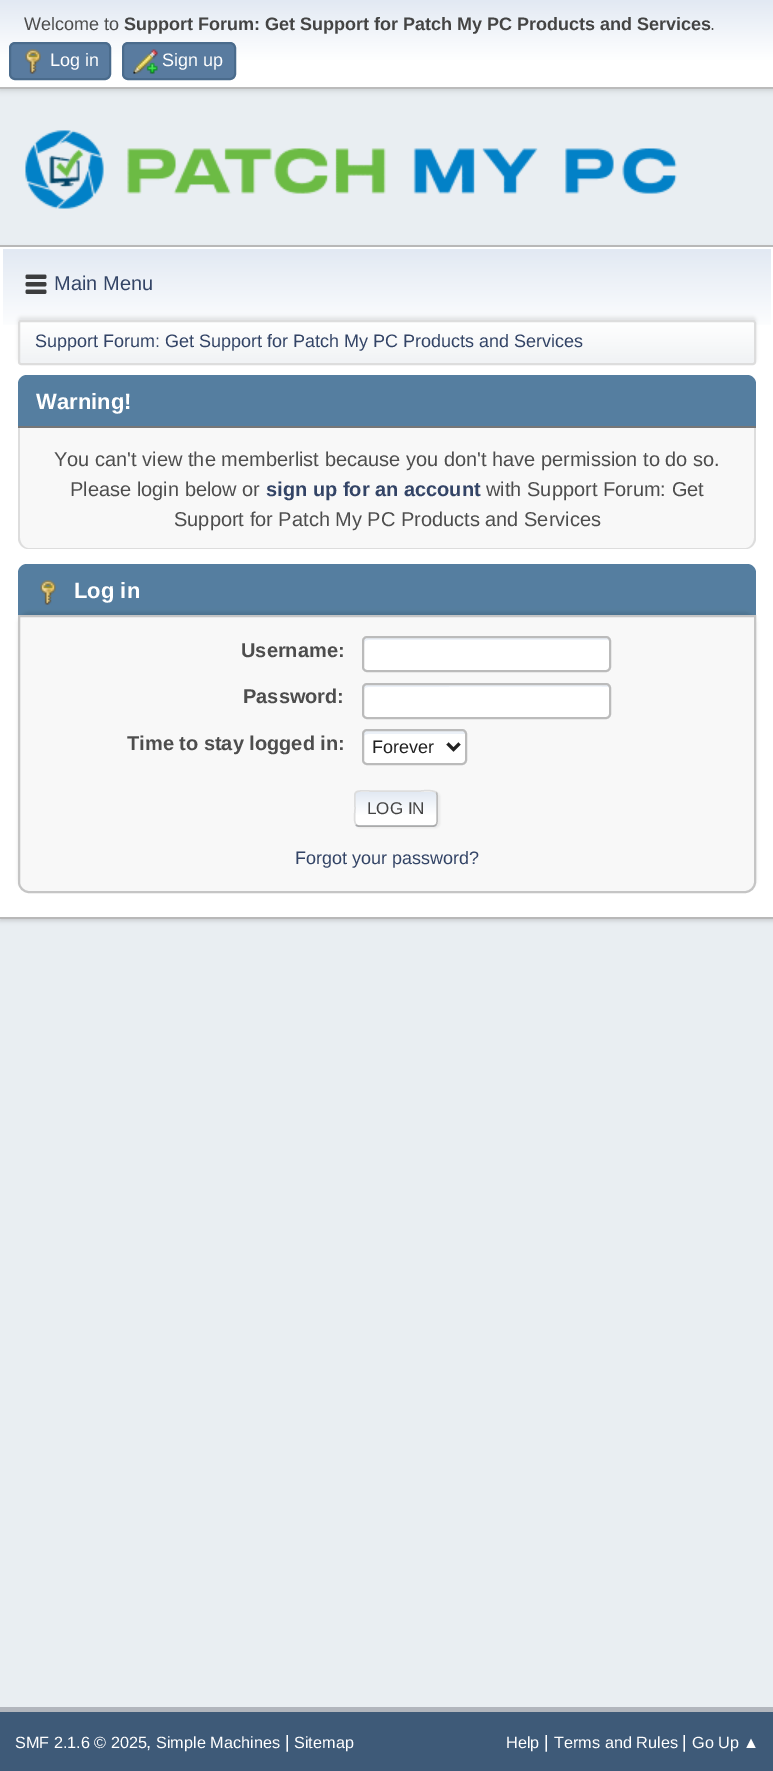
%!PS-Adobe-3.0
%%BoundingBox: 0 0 773 1771
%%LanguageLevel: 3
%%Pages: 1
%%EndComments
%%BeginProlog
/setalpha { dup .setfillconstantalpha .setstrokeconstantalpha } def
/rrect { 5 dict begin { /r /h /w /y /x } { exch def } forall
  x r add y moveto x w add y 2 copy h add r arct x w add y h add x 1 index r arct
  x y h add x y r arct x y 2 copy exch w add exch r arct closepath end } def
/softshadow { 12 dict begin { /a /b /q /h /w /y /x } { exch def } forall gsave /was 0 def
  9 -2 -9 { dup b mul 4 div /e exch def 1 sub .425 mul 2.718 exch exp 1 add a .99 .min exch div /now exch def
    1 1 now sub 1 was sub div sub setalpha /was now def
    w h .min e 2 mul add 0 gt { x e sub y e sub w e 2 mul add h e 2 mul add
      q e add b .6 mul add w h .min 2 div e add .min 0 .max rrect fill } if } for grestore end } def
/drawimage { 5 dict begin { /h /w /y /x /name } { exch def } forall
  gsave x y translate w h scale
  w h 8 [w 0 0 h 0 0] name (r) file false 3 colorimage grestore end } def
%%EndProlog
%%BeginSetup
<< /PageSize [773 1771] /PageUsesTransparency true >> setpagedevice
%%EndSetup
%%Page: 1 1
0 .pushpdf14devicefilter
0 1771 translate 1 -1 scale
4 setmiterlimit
0.914 0.933 0.949 setrgbcolor
0 0 773 1771 rectfill
0 setgray
0 2 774 88 0 3 0.16 softshadow
gsave newpath 0 0 moveto 773 0 lineto 773 87 lineto 0 87 lineto closepath clip newpath
<< /ShadingType 2 /ColorSpace /DeviceRGB /Coords [387 0 387 87] /Extend [true true] /Function << /FunctionType 3 /Domain [0 1] /Functions [<< /FunctionType 2 /Domain [0 1] /C0 [0.886 0.914 0.953] /C1 [1 1 1] /N 1 >> << /FunctionType 2 /Domain [0 1] /C0 [1 1 1] /C1 [1 1 1] /N 1 >>] /Bounds [0.7] /Encode [0 1 0 1] >> >> shfill grestore
0.733 setgray
0 87 773 2 rectfill
0.349 0.482 0.624 setrgbcolor
10 43 100 36 5 rrect gsave fill grestore
0.29 0.42 0.549 setrgbcolor
2 setlinewidth
stroke
(images/1.raw) 25 49 16 25 drawimage
0.349 0.482 0.624 setrgbcolor
123 43 112 36 5 rrect gsave fill grestore
0.29 0.42 0.549 setrgbcolor
stroke
(images/2.raw) 133 49 25 25 drawimage
(images/3.raw) 25 130 652 79 drawimage
0 setgray
0 248 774 673 0 2 0.14 softshadow
1 setgray
0 247 773 670 rectfill
0.722 setgray
0 245 773 2 rectfill
0 917 773 2 rectfill
gsave newpath 3 249 moveto 771 249 lineto 771 325 lineto 3 325 lineto closepath clip newpath
<< /ShadingType 2 /ColorSpace /DeviceRGB /Coords [387 249 387 368] /Extend [true true] /Function << /FunctionType 3 /Domain [0 1] /Functions [<< /FunctionType 2 /Domain [0 1] /C0 [0.886 0.914 0.953] /C1 [1 1 1] /N 1 >> << /FunctionType 2 /Domain [0 1] /C0 [1 1 1] /C1 [1 1 1] /N 1 >>] /Bounds [0.7] /Encode [0 1 0 1] >> >> shfill grestore
(images/4.raw) 25 274 22 20 drawimage
0 setgray
18 317 738 45 3 1.5 0.08 softshadow
gsave
18 320 738 45 3 rrect clip newpath
gsave newpath 18 321 moveto 756 321 lineto 756 363 lineto 18 363 lineto closepath clip newpath
<< /ShadingType 2 /ColorSpace /DeviceRGB /Coords [387 321 387 363] /Extend [true true] /Function << /FunctionType 3 /Domain [0 1] /Functions [<< /FunctionType 2 /Domain [0 1] /C0 [1 1 1] /C1 [0.945 0.953 0.961] /N 1 >> << /FunctionType 2 /Domain [0 1] /C0 [0.945 0.953 0.961] /C1 [0.945 0.953 0.961] /N 1 >>] /Bounds [0.95] /Encode [0 1 0 1] >> >> shfill grestore
grestore
0.867 setgray
19 321 736 43 2 rrect stroke
0.333 0.494 0.627 setrgbcolor
newpath 27 375 moveto 747 375 lineto 752 375 756 379 756 384 curveto 756 428 lineto 18 428 lineto 18 384 lineto 18 379 22 375 27 375 curveto closepath fill
0.467 setgray
18 426 738 2 rectfill
0.973 setgray
newpath 18 428 moveto 756 428 lineto 756 538 lineto 756 544 751 549 745 549 curveto 29 549 lineto 23 549 18 544 18 538 curveto closepath fill
0.867 setgray
newpath 18 428 moveto 756 428 lineto 756 538 lineto 756 544 751 549 746 549 curveto 28 549 lineto 23 549 18 544 18 538 curveto closepath 20 428 moveto 754 428 lineto 754 538 lineto 754 543 750 548 746 548 curveto 28 548 lineto 24 548 20 543 20 538 curveto closepath eofill
0.333 0.494 0.627 setrgbcolor
newpath 27 564 moveto 747 564 lineto 752 564 756 568 756 573 curveto 756 617 lineto 18 617 lineto 18 573 lineto 18 568 22 564 27 564 curveto closepath fill
(images/5.raw) 40 580 16 25 drawimage
0 setgray
18 612 738 278 11 1.5 0.1 softshadow
0.973 setgray
newpath 19 616 moveto 755 616 lineto 755 882 lineto 755 887.5 750.5 892 745 892 curveto 29 892 lineto 23.5 892 19 887.5 19 882 curveto closepath gsave fill grestore
0.773 setgray
stroke
1 setgray
362 636 249 36 5 rrect fill
0.925 0.945 0.973 setrgbcolor
newpath 368 640 moveto 608 640 lineto 609 641 lineto 609 639 608 638 606 638 curveto 366 638 lineto 364 638 363 639 363 641 curveto 363 668 lineto 363 669 363 670 364 670 curveto 364 648 lineto 364 645 363 640 368 640 curveto closepath fill
0.733 setgray
363 637 247 34 4 rrect stroke
1 setgray
362 683 249 36 5 rrect fill
0.925 0.945 0.973 setrgbcolor
newpath 368 687 moveto 390 687 608 686 609 687 curveto 609 685 608 684 606 684 curveto 366 684 lineto 364 684 363 685 363 687 curveto 363 714 lineto 363 715 363 716 364 716 curveto 364 690 lineto 364 688 366 687 368 687 curveto closepath fill
0.733 setgray
363 684 247 34 4 rrect stroke
1 setgray
362 729 105 36 5 rrect fill
0.925 0.945 0.973 setrgbcolor
newpath 368 734 moveto 465 734 lineto 465 728 453 731 446 731 curveto 382 731 lineto 360 731 363 727 363 748 curveto 363 750 362 761 364 763 curveto 364 736 lineto 364 735 366 734 368 734 curveto closepath fill
0.733 setgray
363 730 103 34 4 rrect stroke
0.133 setgray
3 setlinewidth
newpath 447.5 743.5 moveto 453.5 749.5 lineto 459.5 743.5 lineto stroke
0.867 setgray
356 792 84 36 5 1 0.57 softshadow
1 setgray
354 791 84 36 5 rrect fill
gsave
354 791 84 36 5 rrect clip newpath
gsave newpath 354 792 moveto 438 792 lineto 438 825 lineto 354 825 lineto closepath clip newpath
<< /ShadingType 2 /ColorSpace /DeviceRGB /Coords [396 792 396 825] /Extend [true true] /Function << /FunctionType 3 /Domain [0 1] /Functions [<< /FunctionType 2 /Domain [0 1] /C0 [0.886 0.914 0.953] /C1 [1 1 1] /N 1 >> << /FunctionType 2 /Domain [0 1] /C0 [1 1 1] /C1 [1 1 1] /N 1 >>] /Bounds [0.7] /Encode [0 1 0 1] >> >> shfill grestore
gsave newpath 354 825 moveto 438 825 lineto 438 827 lineto 354 827 lineto closepath clip newpath
<< /ShadingType 2 /ColorSpace /DeviceRGB /Coords [396 825 396 858] /Extend [true true] /Function << /FunctionType 3 /Domain [0 1] /Functions [<< /FunctionType 2 /Domain [0 1] /C0 [0.886 0.914 0.953] /C1 [1 1 1] /N 1 >> << /FunctionType 2 /Domain [0 1] /C0 [1 1 1] /C1 [1 1 1] /N 1 >>] /Bounds [0.7] /Encode [0 1 0 1] >> >> shfill grestore
grestore
0.733 setgray
1.5 setlinewidth
newpath 436 792.5 moveto 437 793 437 794 437 795 curveto 437 822 lineto 437 823 437 824 436 824.5 curveto stroke
0.667 setgray
newpath 436 824.5 moveto 435.5 825.5 434.5 826 433.5 826 curveto 358.5 826 lineto 357.5 826 356.5 825.5 356 824.5 curveto stroke
0.867 setgray
newpath 356 824.5 moveto 353.5 822.5 355 811.5 355 808.5 curveto 355 789 351.5 791 371 791 curveto 421 791 lineto 421.5 791 433 789.5 436 792.5 curveto stroke
0.243 0.353 0.471 setrgbcolor
0 1712 773 59 rectfill
0.698 0.714 0.741 setrgbcolor
0 1707 773 5 rectfill
/LiberationSans-Regular [18 0 0 -18 0 0] selectfont
0.302 setgray
24 30 moveto (Welcome to) show
/LiberationSans-Bold [18 0 0 -18 0 0] selectfont
0.267 setgray
124 30 moveto (Support Forum: Get Support for Patch My PC Products and Services) show
/LiberationSans-Regular [18 0 0 -18 0 0] selectfont
0.302 setgray
710 30 moveto (.) show
1 setgray
50 66 moveto (Log in) show
162 66 moveto (Sign up) show
/LiberationSans-Regular [20 0 0 -20 0 0] selectfont
0.2 0.267 0.4 setrgbcolor
54 290 moveto (Main Menu) show
/LiberationSans-Regular [18 0 0 -18 0 0] selectfont
35 347 moveto (Support Forum: Get Support for Patch My PC Products and Services) show
/LiberationSans-Bold [22 0 0 -22 0 0] selectfont
1 setgray
36 409 moveto (Warning!) show
/LiberationSans-Regular [20 0 0 -20 0 0] selectfont
0.302 setgray
54 466 moveto (You can't view the memberlist because you don't have permission to do so.) show
70 496 moveto (Please login below or) show
/LiberationSans-Bold [20 0 0 -20 0 0] selectfont
0.2 0.267 0.4 setrgbcolor
266 496 moveto (sign up for an account) show
/LiberationSans-Regular [20 0 0 -20 0 0] selectfont
0.302 setgray
486 496 moveto (with Support Forum: Get) show
174 526 moveto (Support for Patch My PC Products and Services) show
/LiberationSans-Bold [22 0 0 -22 0 0] selectfont
1 setgray
74 598 moveto (Log in) show
/LiberationSans-Bold [20 0 0 -20 0 0] selectfont
0.302 setgray
241 657 moveto (Username:) show
243 703 moveto (Password:) show
127 750 moveto (Time to stay logged in:) show
/LiberationSans-Regular [18 0 0 -18 0 0] selectfont
0.133 setgray
372 753 moveto (Forever) show
/LiberationSans-Regular [17 0 0 -17 0 0] selectfont
0.267 setgray
367 814 moveto (LOG IN) show
/LiberationSans-Regular [18 0 0 -18 0 0] selectfont
0.2 0.267 0.4 setrgbcolor
295 864 moveto (Forgot your password?) show
/LiberationSans-Regular [16.25 0 0 -16.25 0 0] selectfont
1 setgray
15 1748 moveto (SMF 2.1.6 © 2025) show
/LiberationSans-Regular [18 0 0 -18 0 0] selectfont
146 1748 moveto (,) show
/LiberationSans-Regular [16.25 0 0 -16.25 0 0] selectfont
156 1748 moveto (Simple Machines) show
/LiberationSans-Regular [18 0 0 -18 0 0] selectfont
285 1748 moveto (|) show
/LiberationSans-Regular [16.25 0 0 -16.25 0 0] selectfont
294 1748 moveto (Sitemap) show
506 1748 moveto (Help) show
/LiberationSans-Regular [18 0 0 -18 0 0] selectfont
544 1748 moveto (|) show
/LiberationSans-Regular [16.25 0 0 -16.25 0 0] selectfont
554 1748 moveto (Terms and Rules) show
/LiberationSans-Regular [18 0 0 -18 0 0] selectfont
682 1748 moveto (|) show
/LiberationSans-Regular [16.25 0 0 -16.25 0 0] selectfont
692 1748 moveto (Go Up ▲) show
.poppdf14devicefilter showpage
%%EOF
